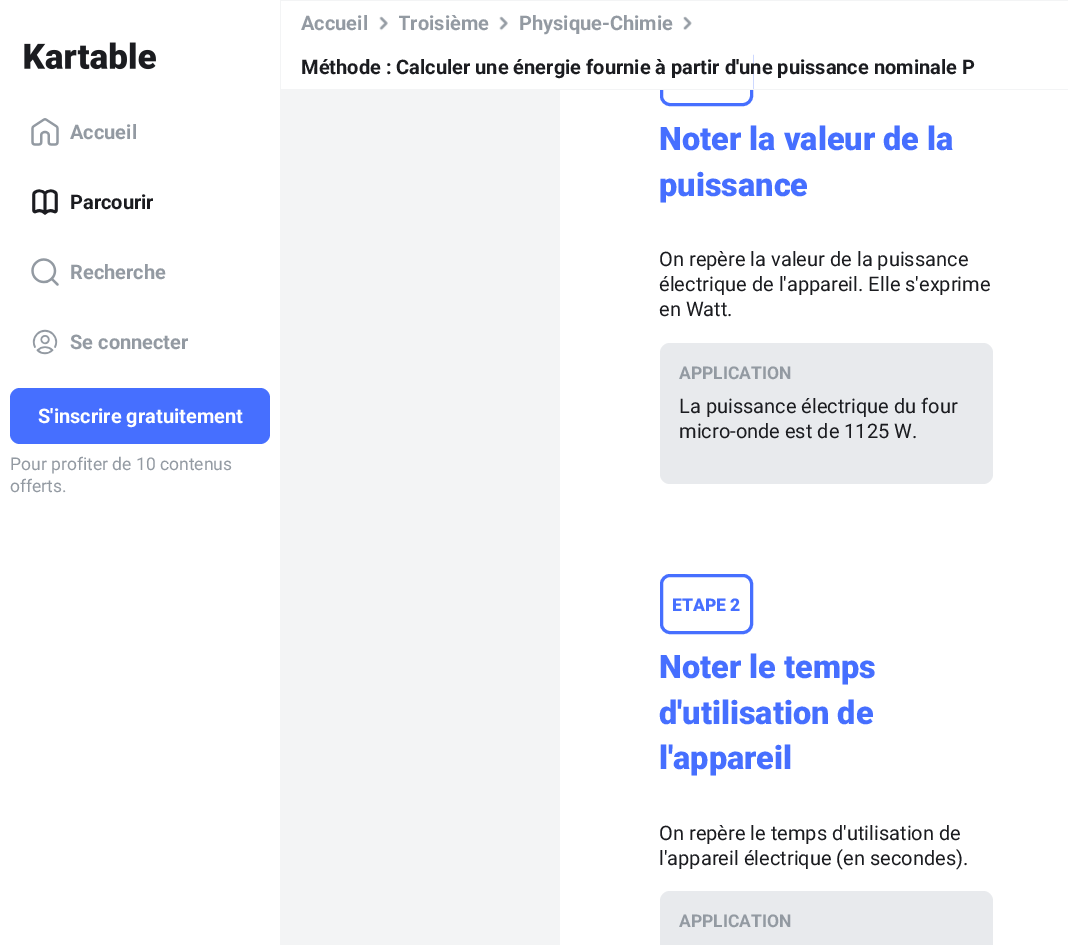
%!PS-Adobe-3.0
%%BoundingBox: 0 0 1068 945
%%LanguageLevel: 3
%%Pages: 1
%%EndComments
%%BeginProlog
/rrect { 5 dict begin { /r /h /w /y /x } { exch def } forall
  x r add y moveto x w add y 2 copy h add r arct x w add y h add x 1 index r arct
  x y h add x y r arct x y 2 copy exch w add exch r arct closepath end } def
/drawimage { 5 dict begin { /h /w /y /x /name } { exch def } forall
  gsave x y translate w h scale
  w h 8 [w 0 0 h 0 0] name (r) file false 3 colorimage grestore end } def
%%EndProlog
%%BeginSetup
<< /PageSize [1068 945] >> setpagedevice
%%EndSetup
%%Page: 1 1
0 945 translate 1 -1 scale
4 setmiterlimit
1 setgray
0 0 1068 945 rectfill
0.953 0.957 0.961 setrgbcolor
280 0 1 945 rectfill
(images/1.raw) 24 42 132 28 drawimage
(images/2.raw) 31 118 28 28 drawimage
(images/3.raw) 32 189 26 26 drawimage
(images/4.raw) 31 258 28 28 drawimage
(images/5.raw) 32 329 26 26 drawimage
0.275 0.435 1 setrgbcolor
10 388 260 56 10 rrect fill
3 setlinewidth
661.5 47.5 90 57 8.5 rrect stroke
1 setgray
660 46 93 43 rectfill
0.953 0.957 0.961 setrgbcolor
281 0 787 1 rectfill
281 89 787 1 rectfill
(images/6.raw) 379 16 9 15 drawimage
(images/6.raw) 499 16 9 15 drawimage
(images/7.raw) 683 16 9 14 drawimage
281 90 279 855 rectfill
0.91 0.918 0.929 setrgbcolor
660 343 333 141 10 rrect fill
0.275 0.435 1 setrgbcolor
661.5 575.5 90 57 8.5 rrect stroke
0.91 0.918 0.929 setrgbcolor
660 891 333 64 10 rrect fill
/Roboto-Bold [20 0 0 -20 0 0] selectfont
0.576 0.604 0.635 setrgbcolor
70 139 moveto (Accueil) show
0.106 0.11 0.125 setrgbcolor
70 209 moveto (Parcourir) show
0.576 0.604 0.635 setrgbcolor
70 279 moveto (Recherche) show
70 349 moveto (Se connecter) show
1 setgray
38 423 moveto (S'inscrire gratuitement) show
/Roboto-Regular [17.5 0 0 -17.5 0 0] selectfont
0.576 0.604 0.635 setrgbcolor
10 470 moveto (Pour profiter de 10 contenus) show
10 492 moveto (offerts.) show
/Roboto-Bold [20 0 0 -20 0 0] selectfont
301 30 moveto (Accueil) show
gsave
399 1 90 44 rectclip
398 30 moveto (Troisième) show
grestore
519 30 moveto (Physique-Chimie) show
0.106 0.11 0.125 setrgbcolor
301 74 moveto (Méthode : Calculer une énergie fournie à partir d'une puissance nominale P) show
/Roboto-Black [32.5 0 0 -32.5 0 0] selectfont
0.275 0.435 1 setrgbcolor
659 150 moveto (Noter la valeur de la) show
659 196 moveto (puissance) show
/Roboto-Regular [20 0 0 -20 0 0] selectfont
0.106 0.11 0.125 setrgbcolor
659 266 moveto (On repère la valeur de la puissance) show
659 291 moveto (électrique de l'appareil. Elle s'exprime) show
659 316 moveto (en Watt.) show
/Roboto-Bold [17.5 0 0 -17.5 0 0] selectfont
0.576 0.604 0.635 setrgbcolor
679 379 moveto (APPLICATION) show
/Roboto-Regular [20 0 0 -20 0 0] selectfont
0.106 0.11 0.125 setrgbcolor
679 413 moveto (La puissance électrique du four) show
679 438 moveto (micro-onde est de 1125 W.) show
/Roboto-Black [17.5 0 0 -17.5 0 0] selectfont
0.275 0.435 1 setrgbcolor
672 611 moveto (ETAPE 2) show
/Roboto-Black [32.5 0 0 -32.5 0 0] selectfont
659 678 moveto (Noter le temps) show
659 724 moveto (d'utilisation de) show
659 769 moveto (l'appareil) show
/Roboto-Regular [20 0 0 -20 0 0] selectfont
0.106 0.11 0.125 setrgbcolor
659 840 moveto (On repère le temps d'utilisation de) show
659 865 moveto (l'appareil électrique \(en secondes\).) show
/Roboto-Bold [17.5 0 0 -17.5 0 0] selectfont
0.576 0.604 0.635 setrgbcolor
679 927 moveto (APPLICATION) show
showpage
%%EOF
